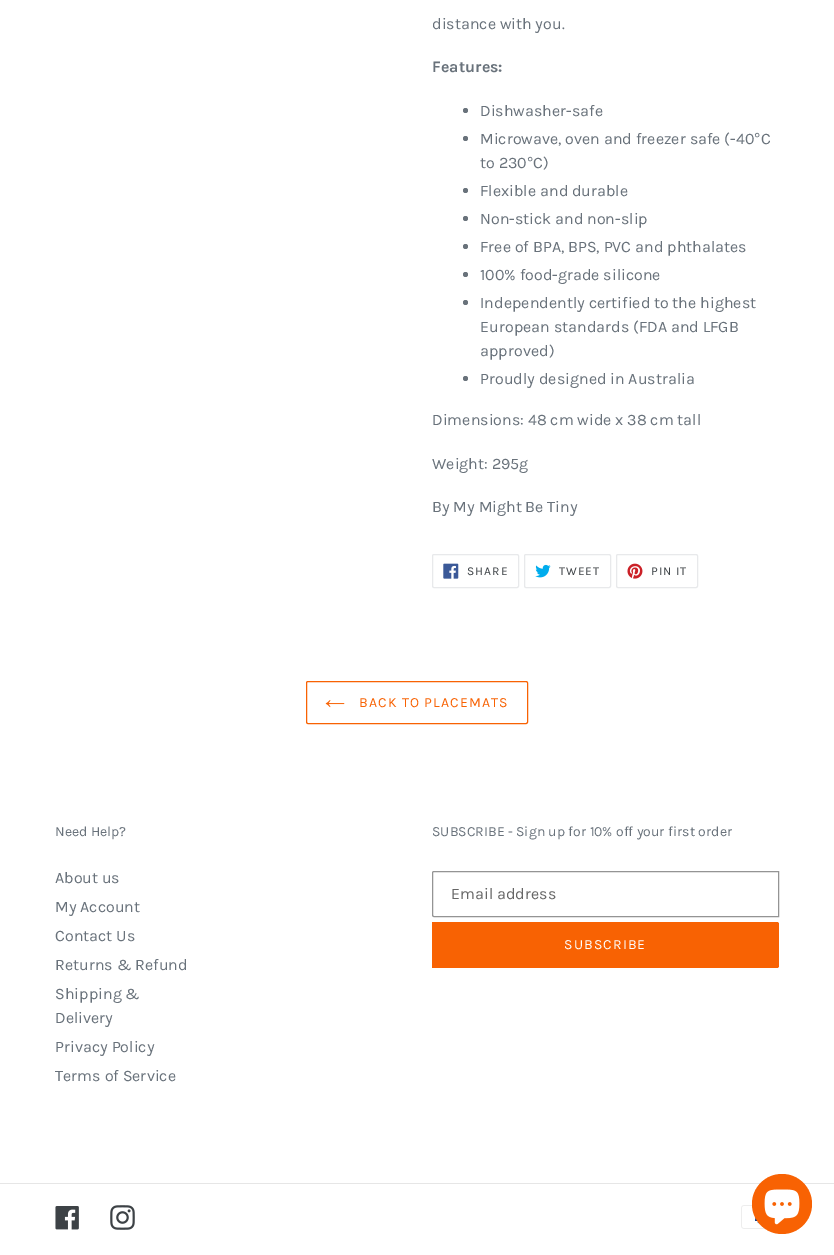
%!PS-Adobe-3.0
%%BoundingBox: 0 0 834 1255
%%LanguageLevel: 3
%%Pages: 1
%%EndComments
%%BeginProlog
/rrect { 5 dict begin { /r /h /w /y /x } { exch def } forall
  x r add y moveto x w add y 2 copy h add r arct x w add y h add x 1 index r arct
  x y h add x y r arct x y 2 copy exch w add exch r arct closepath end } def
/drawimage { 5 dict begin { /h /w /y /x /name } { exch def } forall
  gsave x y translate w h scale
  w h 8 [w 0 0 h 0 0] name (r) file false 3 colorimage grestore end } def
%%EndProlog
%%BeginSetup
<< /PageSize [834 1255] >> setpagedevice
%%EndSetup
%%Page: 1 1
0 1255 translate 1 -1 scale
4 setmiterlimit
1 setgray
0 0 834 1255 rectfill
0.412 0.447 0.482 setrgbcolor
newpath 465.5 110.5 2.5 0 360 arc closepath fill
newpath 465.5 138.5 2.5 0 360 arc closepath fill
newpath 465.5 190.5 2.5 0 360 arc closepath fill
newpath 465.5 218.5 2.5 0 360 arc closepath fill
newpath 465.5 246.5 2.5 0 360 arc closepath fill
newpath 465.5 274.5 2.5 0 360 arc closepath fill
newpath 465.5 302.5 2.5 0 360 arc closepath fill
newpath 465.5 378.5 2.5 0 360 arc closepath fill
0.91 0.914 0.922 setrgbcolor
432.5 554.5 86 33 1.5 rrect stroke
(images/1.raw) 443 563 16 16 drawimage
524.5 554.5 86 33 1.5 rrect stroke
(images/2.raw) 535 564 16 14 drawimage
616.5 554.5 81 33 1.5 rrect stroke
(images/3.raw) 627 563 16 16 drawimage
0.973 0.384 0.012 setrgbcolor
306.5 681.5 221 42 1.5 rrect stroke
(images/4.raw) 325 700 20 8 drawimage
0.58 setgray
newpath 434 871.5 moveto 778.5 871.5 lineto 778.5 916.5 lineto 434 916.5 lineto 433 916.5 432.5 916 432.5 915 curveto 432.5 873 lineto 432.5 872 433 871.5 434 871.5 curveto closepath stroke
0.973 0.384 0.012 setrgbcolor
newpath 432 922 moveto 777 922 lineto 778 922 779 923 779 924 curveto 779 966 lineto 779 967 778 968 777 968 curveto 432 968 lineto closepath fill
0.902 setgray
0 1183 834 1 rectfill
(images/5.raw) 55 1206 24 24 drawimage
(images/6.raw) 110 1205 25 25 drawimage
(images/7.raw) 741 1205 25 24 drawimage
0.973 0.384 0.012 setrgbcolor
newpath 782 1204 30 0 360 arc closepath fill
(images/8.raw) 764 1189 36 36 drawimage
/Karla-Regular [16 0 0 -16 0 0] selectfont
0.412 0.447 0.482 setrgbcolor
432 29 moveto (distance with you.) show
/Karla-Bold [16 0 0 -16 0 0] selectfont
432 72 moveto (Features:) show
/Karla-Regular [16 0 0 -16 0 0] selectfont
480 116 moveto (Dishwasher-safe) show
480 144 moveto (Microwave, oven and freezer safe \(-40) show
/LiberationSans-Regular [16 0 0 -16 0 0] selectfont
754 144 moveto (°) show
/Karla-Regular [16 0 0 -16 0 0] selectfont
761 144 moveto (C) show
480 168 moveto (to 230) show
/LiberationSans-Regular [16 0 0 -16 0 0] selectfont
527 168 moveto (°) show
/Karla-Regular [16 0 0 -16 0 0] selectfont
533 168 moveto (C\)) show
480 196 moveto (Flexible and durable) show
480 224 moveto (Non-stick and non-slip) show
480 252 moveto (Free of BPA, BPS, PVC and phthalates) show
480 280 moveto (100% food-grade silicone) show
480 308 moveto (Independently certified to the highest) show
480 332 moveto (European standards \(FDA and LFGB) show
480 356 moveto (approved\)) show
480 384 moveto (Proudly designed in Australia) show
432 425 moveto (Dimensions: 48 cm wide x 38 cm tall) show
432 469 moveto (Weight: 295g) show
432 512 moveto (By My Might Be Tiny) show
/Karla-Regular [12 0 0 -12 0 0] selectfont
0.239 0.259 0.275 setrgbcolor
467 575 moveto 1 0 (SHARE) ashow
559 575 moveto 1 0 (TWEET) ashow
651 575 moveto 1 0 (PIN IT) ashow
/Karla-Regular [14 0 0 -14 0 0] selectfont
0.973 0.384 0.012 setrgbcolor
359 707 moveto 1.1 0 (BACK TO PLACEMATS) ashow
0.412 0.447 0.482 setrgbcolor
55 836 moveto (Need Help?) show
/Karla-Regular [16 0 0 -16 0 0] selectfont
55 883 moveto (About us) show
55 912 moveto (My Account) show
55 941 moveto (Contact Us) show
55 970 moveto (Returns & Refund) show
55 999 moveto (Shipping &) show
55 1023 moveto (Delivery) show
55 1052 moveto (Privacy Policy) show
55 1081 moveto (Terms of Service) show
/Karla-Regular [14 0 0 -14 0 0] selectfont
432 836 moveto (SUBSCRIBE - Sign up for 10% off your first order) show
/Karla-Regular [16 0 0 -16 0 0] selectfont
0.4 setgray
451 899 moveto (Email address) show
/Karla-Regular [14 0 0 -14 0 0] selectfont
1 setgray
564 949 moveto 1.1 0 (SUBSCRIBE) ashow
showpage
%%EOF
